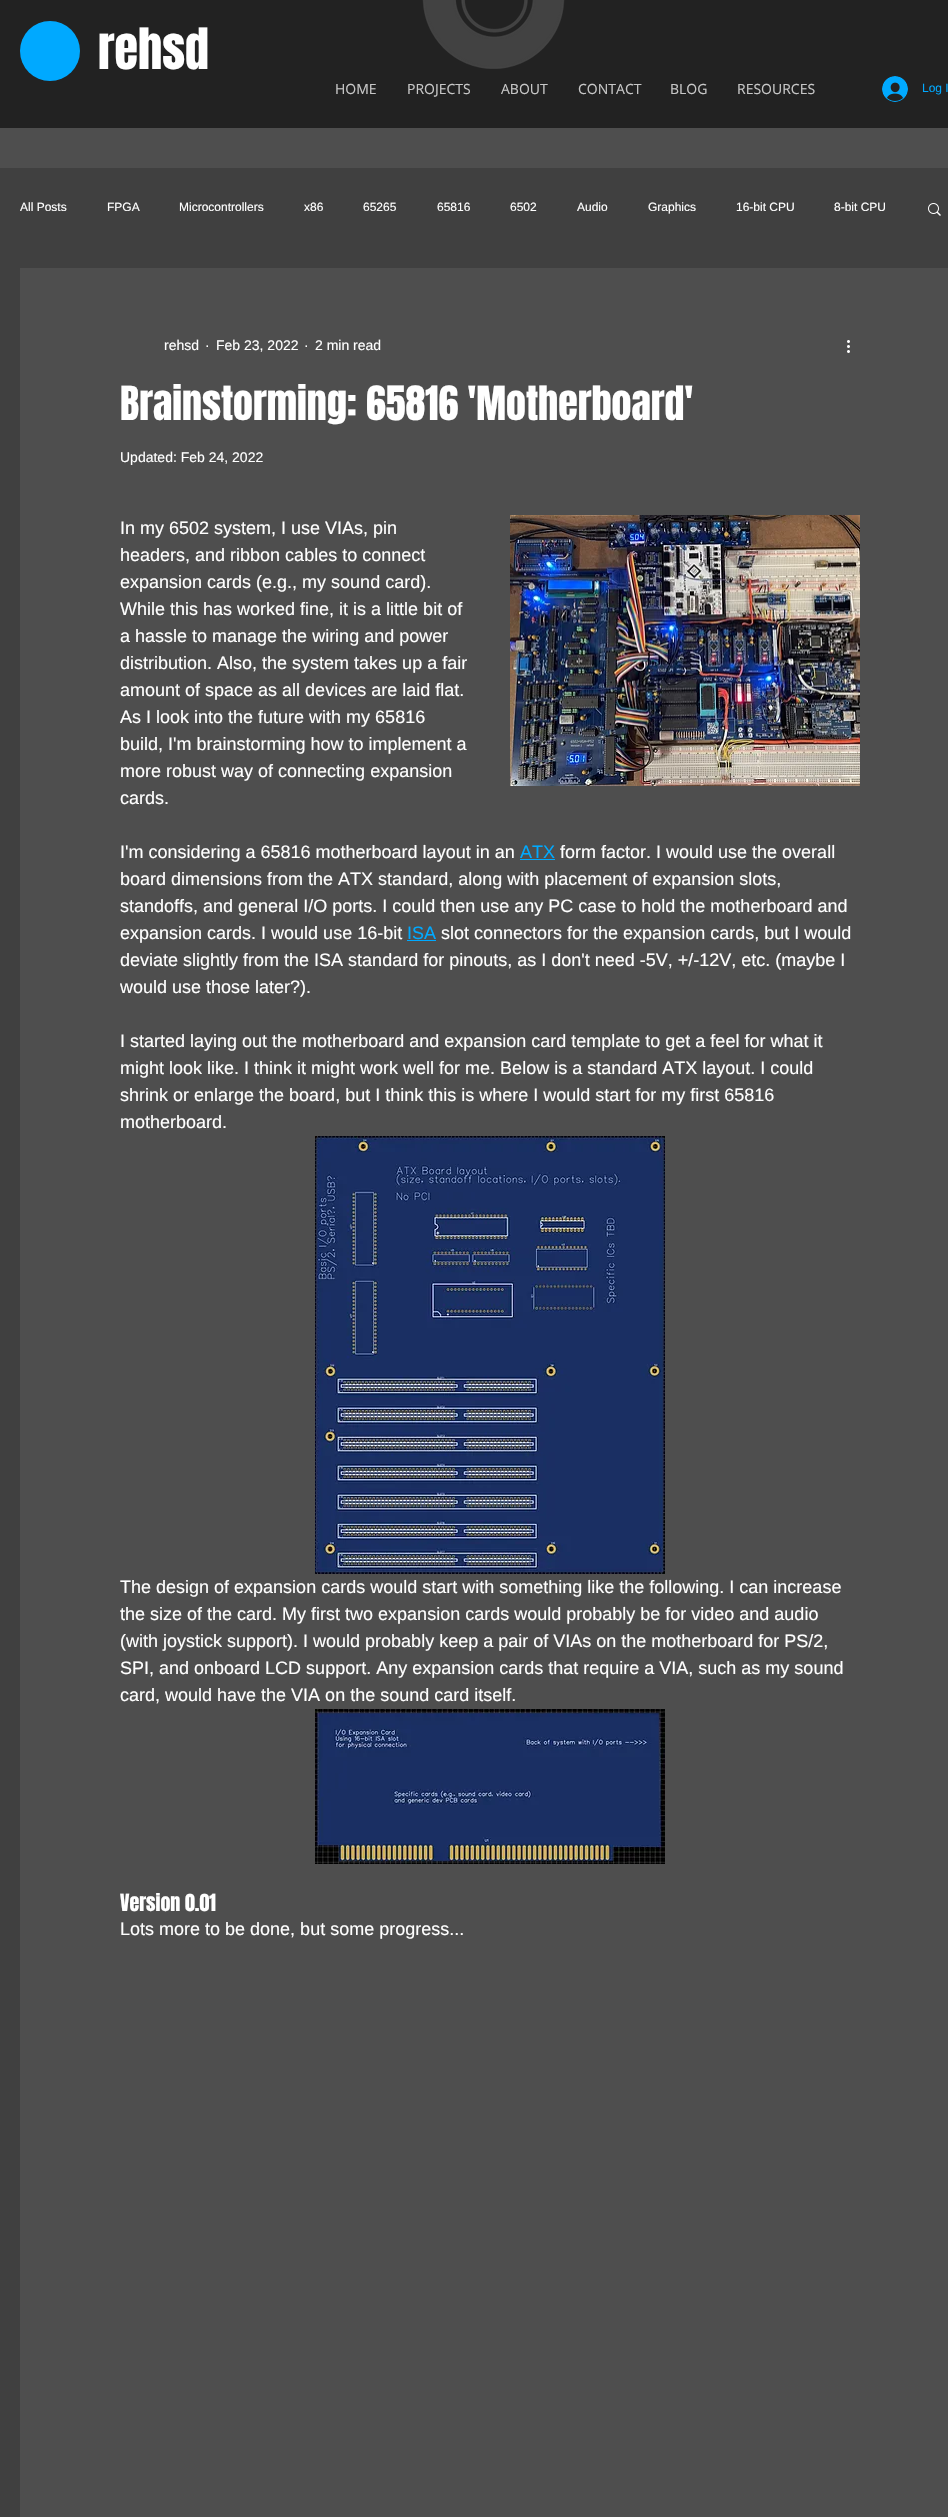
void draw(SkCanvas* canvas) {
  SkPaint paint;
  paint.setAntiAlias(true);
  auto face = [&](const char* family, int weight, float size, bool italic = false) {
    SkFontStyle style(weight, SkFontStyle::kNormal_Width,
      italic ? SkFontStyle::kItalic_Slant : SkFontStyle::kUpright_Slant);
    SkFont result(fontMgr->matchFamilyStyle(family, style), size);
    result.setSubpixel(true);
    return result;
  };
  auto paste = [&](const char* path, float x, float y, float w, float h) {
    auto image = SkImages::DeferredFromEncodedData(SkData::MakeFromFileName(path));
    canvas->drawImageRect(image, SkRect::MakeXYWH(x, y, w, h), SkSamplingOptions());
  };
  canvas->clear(0xff4e4e4e);
  paint.setColor(0xff222222);
  canvas->drawRect(SkRect::MakeXYWH(0, 0, 948, 128), paint);
  paint.setColor(0xff00a9ff);
  canvas->drawCircle(50, 51, 30, paint);
  paste("img/1.png", 422, 0, 143, 69);
  paste("img/2.png", 882, 76, 26, 26);
  paint.setColor(0xff404040);
  canvas->drawRect(SkRect::MakeXYWH(0, 168, 948, 2349), paint);
  paste("img/3.png", 928, 203, 13, 13);
  paint.setColor(0xff4e4e4e);
  canvas->drawRect(SkRect::MakeXYWH(20, 268, 928, 2249), paint);
  paste("img/4.png", 847, 340, 3, 13);
  paste("img/5.png", 510, 515, 350, 271);
  paint.setColor(0xff00a9ff);
  canvas->drawRect(SkRect::MakeXYWH(520, 859, 35, 1), paint);
  canvas->drawRect(SkRect::MakeXYWH(407, 940, 29, 1), paint);
  paste("img/6.png", 315, 1136, 350, 438);
  paste("img/7.png", 315, 1709, 350, 155);
  auto f0 = face("Anton", 400, 48);
  paint.setColor(0xffffffff);
  canvas->drawString("rehsd", 98, 69, f0, paint);
  auto f1 = face("Open Sans", 400, 14);
  paint.setColor(0xffc7c7c7);
  {
    const struct { const char* s; float x, y; } items[] = {
      {"HOME", 335, 94},
      {"PROJECTS", 407, 94},
      {"ABOUT", 501, 94},
      {"CONTACT", 578, 94},
      {"BLOG", 670, 94},
      {"RESOURCES", 737, 94},
    };
    for (auto [s, x, y] : items) {
      canvas->drawString(s, x, y, f1, paint);
    }
  }
  auto f2 = face("Liberation Sans", 400, 12);
  paint.setColor(0xff00a9ff);
  canvas->drawString("Log I", 922, 92, f2, paint);
  paint.setColor(0xffffffff);
  {
    const struct { const char* s; float x, y; } items[] = {
      {"All Posts", 20, 211},
      {"FPGA", 107, 211},
      {"Microcontrollers", 179, 211},
      {"x86", 304, 211},
      {"65265", 363, 211},
      {"65816", 437, 211},
      {"6502", 510, 211},
      {"Audio", 577, 211},
      {"Graphics", 648, 211},
      {"16-bit CPU", 736, 211},
      {"8-bit CPU", 834, 211},
    };
    for (auto [s, x, y] : items) {
      canvas->drawString(s, x, y, f2, paint);
    }
  }
  auto f3 = face("Liberation Sans", 400, 14);
  {
    const struct { const char* s; float x, y; } items[] = {
      {"rehsd", 164, 350},
      {"·", 205, 350},
      {"Feb 23, 2022", 216, 350},
      {"·", 304, 350},
      {"2 min read", 315, 350},
    };
    for (auto [s, x, y] : items) {
      canvas->drawString(s, x, y, f3, paint);
    }
  }
  auto f4 = face("Anton", 400, 40);
  canvas->drawString("Brainstorming: 65816 'Motherboard'", 120, 420, f4, paint);
  canvas->drawString("Updated: Feb 24, 2022", 120, 462, f3, paint);
  auto f5 = face("Liberation Sans", 400, 18);
  {
    const struct { const char* s; float x, y; } items[] = {
      {"In my 6502 system, I use VIAs, pin", 120, 534},
      {"headers, and ribbon cables to connect", 120, 561},
      {"expansion cards (e.g., my sound card).", 120, 588},
      {"While this has worked fine, it is a little bit of", 120, 615},
      {"a hassle to manage the wiring and power", 120, 642},
      {"distribution. Also, the system takes up a fair", 120, 669},
      {"amount of space as all devices are laid flat.", 120, 696},
      {"As I look into the future with my 65816", 120, 723},
      {"build, I'm brainstorming how to implement a", 120, 750},
      {"more robust way of connecting expansion", 120, 777},
      {"cards.", 120, 804},
      {"I'm considering a 65816 motherboard layout in an", 120, 858},
    };
    for (auto [s, x, y] : items) {
      canvas->drawString(s, x, y, f5, paint);
    }
  }
  paint.setColor(0xff00a9ff);
  canvas->drawString("ATX", 520, 858, f5, paint);
  paint.setColor(0xffffffff);
  {
    const struct { const char* s; float x, y; } items[] = {
      {"form factor. I would use the overall", 560, 858},
      {"board dimensions from the ATX standard, along with placement of expansion slots,", 120, 885},
      {"standoffs, and general I/O ports. I could then use any PC case to hold the motherboard and", 120, 912},
      {"expansion cards. I would use 16-bit", 120, 939},
    };
    for (auto [s, x, y] : items) {
      canvas->drawString(s, x, y, f5, paint);
    }
  }
  paint.setColor(0xff00a9ff);
  canvas->drawString("ISA", 407, 939, f5, paint);
  paint.setColor(0xffffffff);
  {
    const struct { const char* s; float x, y; } items[] = {
      {"slot connectors for the expansion cards, but I would", 441, 939},
      {"deviate slightly from the ISA standard for pinouts, as I don't need -5V, +/-12V, etc. (maybe I", 120, 966},
      {"would use those later?).", 120, 993},
      {"I started laying out the motherboard and expansion card template to get a feel for what it", 120, 1047},
      {"might look like. I think it might work well for me. Below is a standard ATX layout. I could", 120, 1074},
      {"shrink or enlarge the board, but I think this is where I would start for my first 65816", 120, 1101},
      {"motherboard.", 120, 1128},
      {"The design of expansion cards would start with something like the following. I can increase", 120, 1593},
      {"the size of the card. My first two expansion cards would probably be for video and audio", 120, 1620},
      {"(with joystick support). I would probably keep a pair of VIAs on the motherboard for PS/2,", 120, 1647},
      {"SPI, and onboard LCD support. Any expansion cards that require a VIA, such as my sound", 120, 1674},
      {"card, would have the VIA on the sound card itself.", 120, 1701},
    };
    for (auto [s, x, y] : items) {
      canvas->drawString(s, x, y, f5, paint);
    }
  }
  auto f6 = face("Anton", 400, 20);
  canvas->drawString("Version 0.01", 120, 1911, f6, paint);
  canvas->drawString("Lots more to be done, but some progress...", 120, 1935, f5, paint);
}
